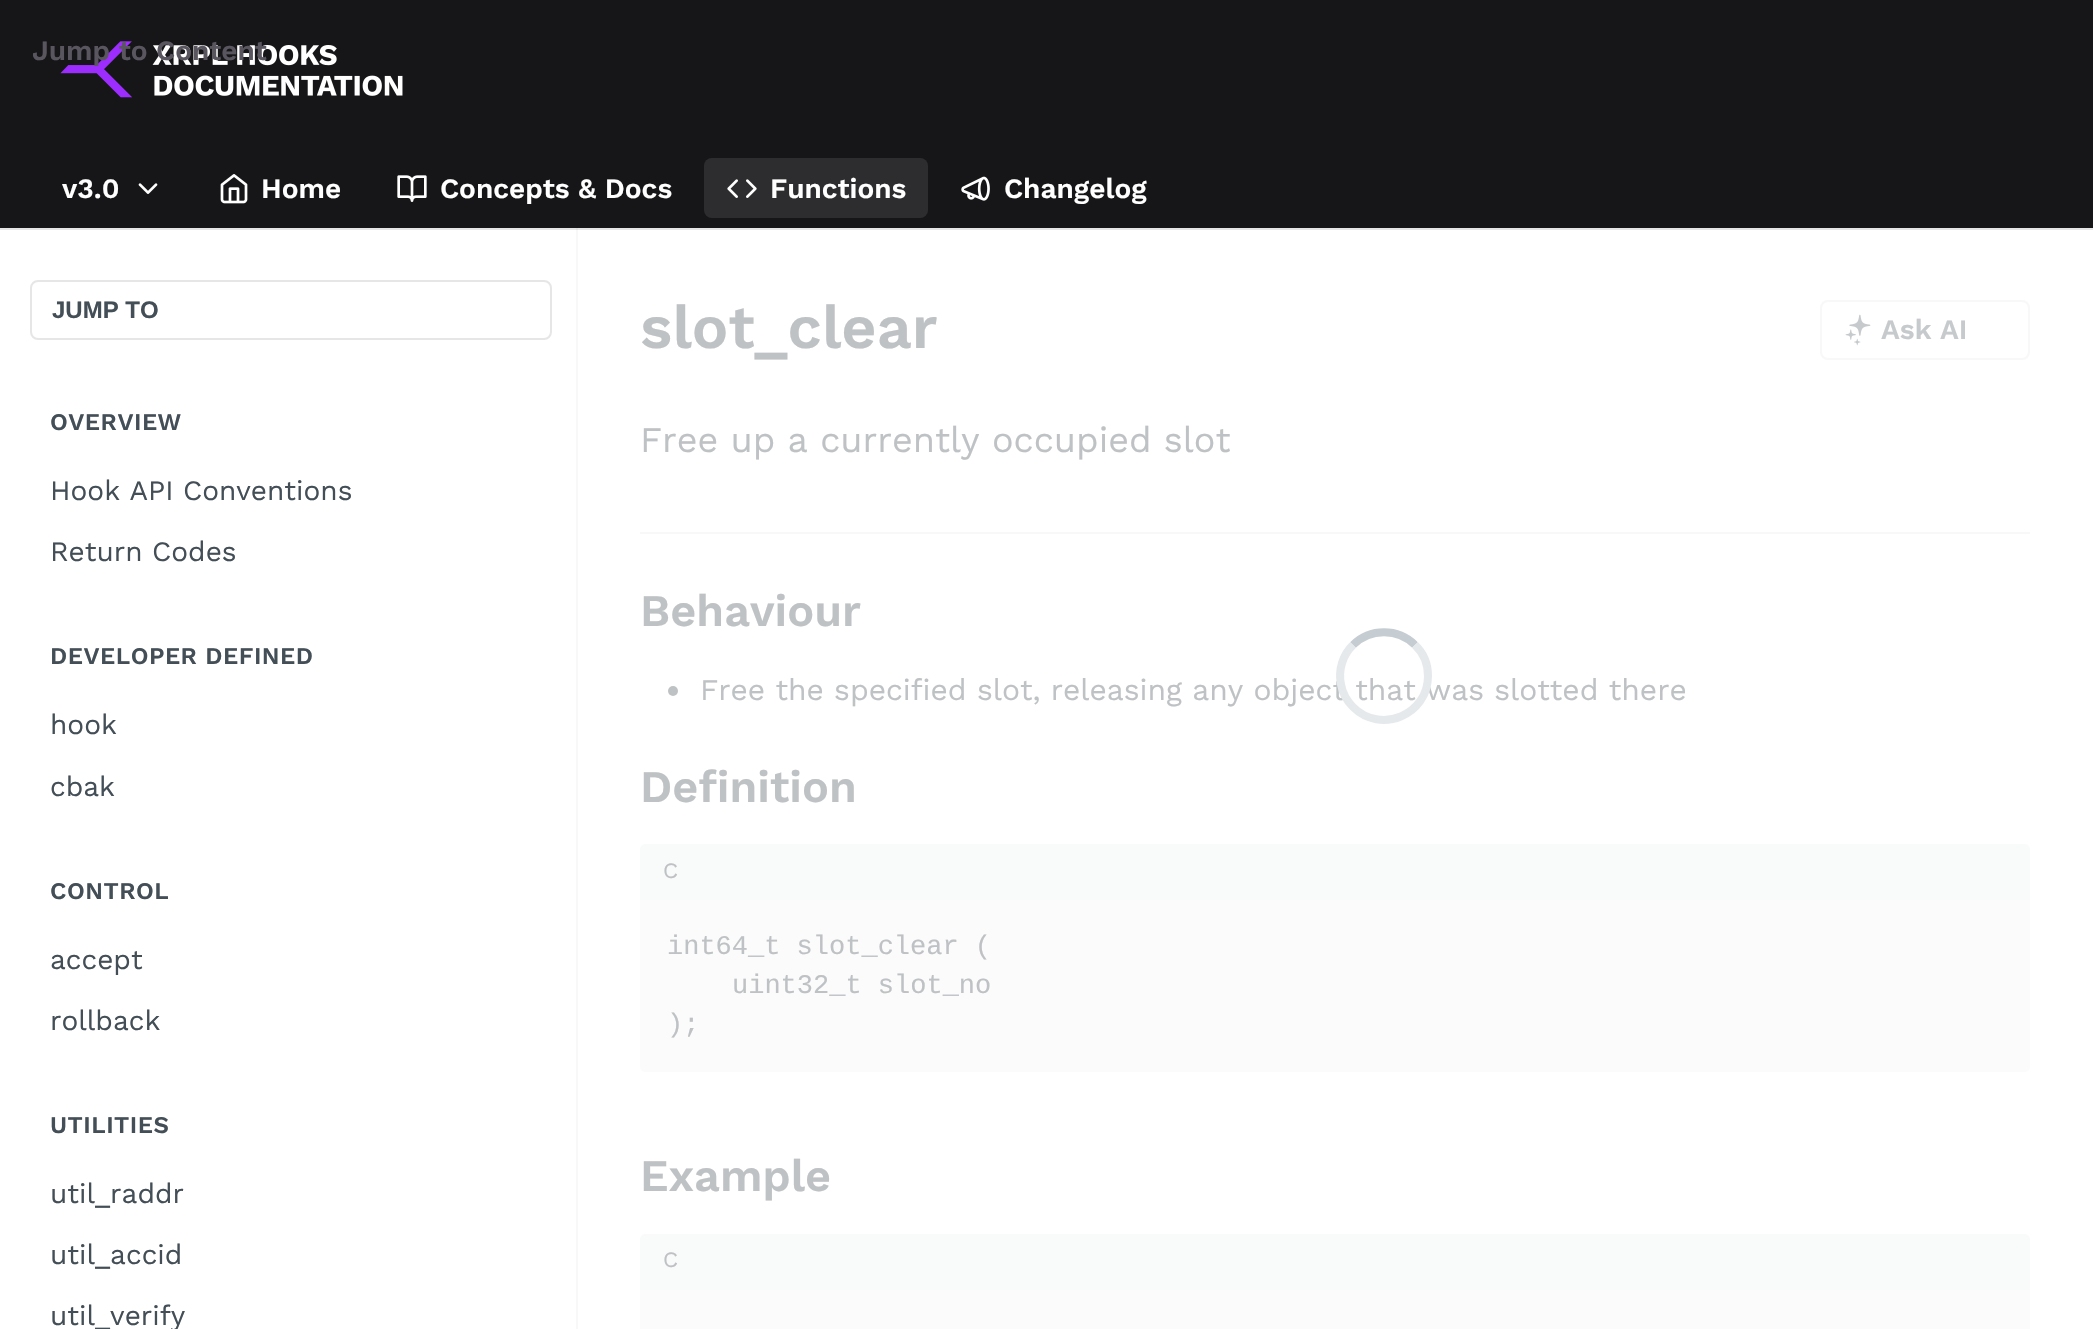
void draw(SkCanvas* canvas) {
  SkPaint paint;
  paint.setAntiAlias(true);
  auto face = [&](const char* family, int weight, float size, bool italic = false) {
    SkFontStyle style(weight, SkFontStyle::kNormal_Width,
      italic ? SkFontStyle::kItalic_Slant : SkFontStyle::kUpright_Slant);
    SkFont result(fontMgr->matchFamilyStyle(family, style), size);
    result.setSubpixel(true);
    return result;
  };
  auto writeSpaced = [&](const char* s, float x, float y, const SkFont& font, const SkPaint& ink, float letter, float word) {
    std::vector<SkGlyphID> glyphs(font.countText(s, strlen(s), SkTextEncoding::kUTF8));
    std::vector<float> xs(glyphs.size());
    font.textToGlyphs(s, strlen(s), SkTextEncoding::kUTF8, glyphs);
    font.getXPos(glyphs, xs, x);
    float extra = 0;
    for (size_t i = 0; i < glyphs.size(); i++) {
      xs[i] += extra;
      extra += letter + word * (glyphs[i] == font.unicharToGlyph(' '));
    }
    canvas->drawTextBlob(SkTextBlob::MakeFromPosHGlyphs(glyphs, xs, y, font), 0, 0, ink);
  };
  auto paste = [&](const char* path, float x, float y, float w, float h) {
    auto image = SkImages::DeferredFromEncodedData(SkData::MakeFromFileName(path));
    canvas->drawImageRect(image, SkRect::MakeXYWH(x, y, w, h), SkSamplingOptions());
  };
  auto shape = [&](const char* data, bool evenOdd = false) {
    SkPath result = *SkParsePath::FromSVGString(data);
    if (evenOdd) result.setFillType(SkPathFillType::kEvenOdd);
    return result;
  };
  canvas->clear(0xffffffff);
  paint.setColor(0xffe6e6e6);
  canvas->drawRect(SkRect::MakeXYWH(0, 228, 2093, 2), paint);
  paint.setColor(0xff161618);
  canvas->drawRect(SkRect::MakeXYWH(0, 0, 2093, 228), paint);
  paste("img/1.png", 60, 41, 343, 57);
  paste("img/2.png", 138, 183, 20, 11);
  paste("img/3.png", 220, 174, 28, 30);
  paste("img/4.png", 397, 175, 30, 27);
  paint.setColor(0xff2d2d2f);
  canvas->drawRoundRect(SkRect::MakeXYWH(704, 158, 224, 60), 8, 8, paint);
  paste("img/5.png", 727, 179, 30, 19);
  paste("img/6.png", 961, 176, 29, 25);
  paint.setColor(0xfff8f8f8);
  canvas->drawRect(SkRect::MakeXYWH(576, 228, 2, 1101), paint);
  paint.setColor(0xffdfdfdf);
  canvas->drawRect(SkRect::MakeXYWH(576, 228, 2, 2), paint);
  paint.setStroke(true);
  paint.setStrokeWidth(2);
  paint.setColor(0xffe6e6e6);
  canvas->drawRoundRect(SkRect::MakeXYWH(31, 281, 520, 58), 7, 7, paint);
  paint.setStroke(false);
  paint.setColor(0xfff8f8f8);
  canvas->drawRect(SkRect::MakeXYWH(640, 532, 1390, 2), paint);
  paint.setStroke(true);
  canvas->drawRoundRect(SkRect::MakeXYWH(1821, 301, 208, 58), 7, 7, paint);
  paste("img/7.png", 1845, 314, 26, 32);
  paint.setStroke(false);
  paint.setColor(0xffbfc2c4);
  canvas->drawCircle(673, 691, 5, paint);
  paint.setColor(0xfff9fafa);
  canvas->drawPath(shape("M646 844H2024C2027.5 844 2030 846.5 2030 850V900H640V850C640 846.5 642.5 844 646 844Z"), paint);
  paint.setColor(0xfffbfbfc);
  canvas->drawPath(shape("M640 900H2030V1066C2030 1069.5 2027.5 1072 2024 1072H646C642.5 1072 640 1069.5 640 1066Z"), paint);
  paint.setColor(0xfff9fafa);
  canvas->drawPath(shape("M646 1234H2024C2027.5 1234 2030 1236.5 2030 1240V1290H640V1240C640 1236.5 642.5 1234 646 1234Z"), paint);
  paint.setColor(0xfffbfbfc);
  canvas->drawRect(SkRect::MakeXYWH(640, 1290, 1390, 39), paint);
  paint.setStroke(true);
  paint.setStrokeWidth(8);
  paint.setColor(0xffc5cdd3);
  canvas->drawPath(shape("M1353 645C1370 628 1398 628 1415 645"), paint);
  auto f0 = face("Work Sans", 600, 28);
  paint.setStroke(false);
  paint.setColor(0xff5a565f);
  canvas->drawString("Jump to Content", 32, 60, f0, paint);
  paint.setColor(0xffffffff);
  {
    const struct { const char* s; float x, y; } items[] = {
      {"v3.0", 62, 198},
      {"Home", 261, 198},
      {"Concepts & Docs", 440, 198},
      {"Functions", 770, 198},
      {"Changelog", 1004, 198},
    };
    for (auto [s, x, y] : items) {
      canvas->drawString(s, x, y, f0, paint);
    }
  }
  auto f1 = face("Liberation Sans", 700, 24);
  paint.setColor(0xff434e56);
  canvas->drawString("JUMP TO", 52, 318, f1, paint);
  auto f2 = face("Work Sans", 600, 24);
  writeSpaced("OVERVIEW", 50, 430, f2, paint, 0.5f, 0);
  auto f3 = face("Work Sans", 400, 28);
  canvas->drawString("Hook API Conventions", 50, 500, f3, paint);
  canvas->drawString("Return Codes", 50, 561, f3, paint);
  writeSpaced("DEVELOPER DEFINED", 50, 664, f2, paint, 0.5f, 0);
  canvas->drawString("hook", 50, 734, f3, paint);
  canvas->drawString("cbak", 50, 796, f3, paint);
  writeSpaced("CONTROL", 50, 899, f2, paint, 0.5f, 0);
  canvas->drawString("accept", 50, 969, f3, paint);
  canvas->drawString("rollback", 50, 1030, f3, paint);
  writeSpaced("UTILITIES", 50, 1133, f2, paint, 0.5f, 0);
  {
    const struct { const char* s; float x, y; } items[] = {
      {"util_raddr", 50, 1203},
      {"util_accid", 50, 1264},
      {"util_verify", 50, 1325},
    };
    for (auto [s, x, y] : items) {
      canvas->drawString(s, x, y, f3, paint);
    }
  }
  auto f4 = face("Work Sans", 600, 61);
  paint.setColor(0xffbfc2c4);
  canvas->drawString("slot_clear", 640, 348, f4, paint);
  paint.setColor(0xffc7cacc);
  canvas->drawString("Ask AI", 1881, 339, f0, paint);
  auto f5 = face("Work Sans", 400, 36);
  paint.setColor(0xffbfc2c4);
  canvas->drawString("Free up a currently occupied slot", 640, 452, f5, paint);
  auto f6 = face("Work Sans", 600, 45);
  canvas->drawString("Behaviour", 640, 626, f6, paint);
  auto f7 = face("Work Sans", 400, 30);
  canvas->drawString("Free the specified slot, releasing any object that was slotted there", 700, 700, f7, paint);
  canvas->drawString("Definition", 640, 802, f6, paint);
  auto f8 = face("Work Sans", 400, 22);
  canvas->drawString("C", 663, 878, f8, paint);
  auto f9 = face("Liberation Mono", 400, 27);
  {
    const struct { const char* s; float x, y; } items[] = {
      {"int64_t slot_clear (", 667, 954},
      {"uint32_t slot_no", 732, 993},
      {");", 667, 1032},
    };
    for (auto [s, x, y] : items) {
      canvas->drawString(s, x, y, f9, paint);
    }
  }
  canvas->drawString("Example", 640, 1191, f6, paint);
  canvas->drawString("C", 663, 1267, f8, paint);
  paint.setStroke(true);
  paint.setColor(0xffe5e9eb);
  canvas->drawPath(shape("M1415 645C1423.5 653 1428 664.5 1428 676C1428 715 1380.5 734.5 1353 707C1347 701 1342.5 693 1341 684.5C1338 670.5 1342.5 655 1353 645"), paint);
}
